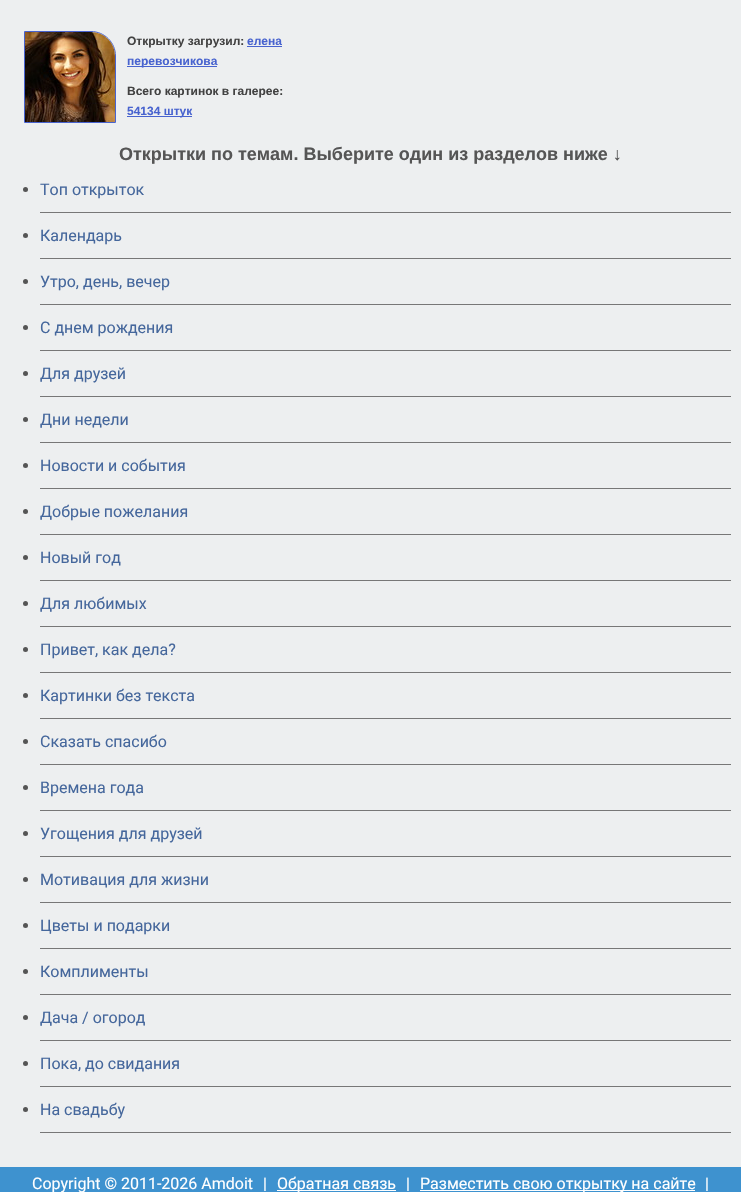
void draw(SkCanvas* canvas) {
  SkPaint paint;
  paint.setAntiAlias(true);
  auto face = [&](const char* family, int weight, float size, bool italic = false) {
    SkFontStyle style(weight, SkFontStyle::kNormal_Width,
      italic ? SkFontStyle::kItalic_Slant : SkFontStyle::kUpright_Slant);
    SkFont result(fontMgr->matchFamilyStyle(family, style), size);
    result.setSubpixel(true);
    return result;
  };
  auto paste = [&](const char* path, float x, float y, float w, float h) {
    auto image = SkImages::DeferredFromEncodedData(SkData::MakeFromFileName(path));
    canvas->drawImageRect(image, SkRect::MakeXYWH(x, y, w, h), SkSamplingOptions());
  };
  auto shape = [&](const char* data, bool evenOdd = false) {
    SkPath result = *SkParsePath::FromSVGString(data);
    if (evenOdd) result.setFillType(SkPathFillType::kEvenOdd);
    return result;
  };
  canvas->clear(0xffedeff0);
  paint.setStroke(true);
  paint.setStrokeWidth(1);
  paint.setColor(0xff4863cf);
  canvas->drawPath(shape("M24.5 31.5H91C104.5 31.5 115.5 42.5 115.5 56V122.5H24.5Z"), paint);
  paste("img/1.png", 25, 32, 90, 90);
  paint.setStroke(false);
  {
    const struct { float x, y, w, h; SkColor color; } items[] = {
      {247, 46, 35, 1, 0xff4863cf},
      {127, 66, 90, 1, 0xff4863cf},
      {127, 116, 65, 1, 0xff4863cf},
      {40, 212, 691, 1, 0xff777777},
    };
    for (auto [x, y, w, h, color] : items) {
      paint.setColor(color);
      canvas->drawRect(SkRect::MakeXYWH(x, y, w, h), paint);
    }
  }
  paint.setColor(0xff555555);
  canvas->drawCircle(25.5f, 189.5f, 2.5f, paint);
  paint.setColor(0xff777777);
  canvas->drawRect(SkRect::MakeXYWH(40, 258, 691, 1), paint);
  paint.setColor(0xff555555);
  canvas->drawCircle(25.5f, 235.5f, 2.5f, paint);
  paint.setColor(0xff777777);
  canvas->drawRect(SkRect::MakeXYWH(40, 304, 691, 1), paint);
  paint.setColor(0xff555555);
  canvas->drawCircle(25.5f, 281.5f, 2.5f, paint);
  paint.setColor(0xff777777);
  canvas->drawRect(SkRect::MakeXYWH(40, 350, 691, 1), paint);
  paint.setColor(0xff555555);
  canvas->drawCircle(25.5f, 327.5f, 2.5f, paint);
  paint.setColor(0xff777777);
  canvas->drawRect(SkRect::MakeXYWH(40, 396, 691, 1), paint);
  paint.setColor(0xff555555);
  canvas->drawCircle(25.5f, 373.5f, 2.5f, paint);
  paint.setColor(0xff777777);
  canvas->drawRect(SkRect::MakeXYWH(40, 442, 691, 1), paint);
  paint.setColor(0xff555555);
  canvas->drawCircle(25.5f, 419.5f, 2.5f, paint);
  paint.setColor(0xff777777);
  canvas->drawRect(SkRect::MakeXYWH(40, 488, 691, 1), paint);
  paint.setColor(0xff555555);
  canvas->drawCircle(25.5f, 465.5f, 2.5f, paint);
  paint.setColor(0xff777777);
  canvas->drawRect(SkRect::MakeXYWH(40, 534, 691, 1), paint);
  paint.setColor(0xff555555);
  canvas->drawCircle(25.5f, 511.5f, 2.5f, paint);
  paint.setColor(0xff777777);
  canvas->drawRect(SkRect::MakeXYWH(40, 580, 691, 1), paint);
  paint.setColor(0xff555555);
  canvas->drawCircle(25.5f, 557.5f, 2.5f, paint);
  paint.setColor(0xff777777);
  canvas->drawRect(SkRect::MakeXYWH(40, 626, 691, 1), paint);
  paint.setColor(0xff555555);
  canvas->drawCircle(25.5f, 603.5f, 2.5f, paint);
  paint.setColor(0xff777777);
  canvas->drawRect(SkRect::MakeXYWH(40, 672, 691, 1), paint);
  paint.setColor(0xff555555);
  canvas->drawCircle(25.5f, 649.5f, 2.5f, paint);
  paint.setColor(0xff777777);
  canvas->drawRect(SkRect::MakeXYWH(40, 718, 691, 1), paint);
  paint.setColor(0xff555555);
  canvas->drawCircle(25.5f, 695.5f, 2.5f, paint);
  paint.setColor(0xff777777);
  canvas->drawRect(SkRect::MakeXYWH(40, 764, 691, 1), paint);
  paint.setColor(0xff555555);
  canvas->drawCircle(25.5f, 741.5f, 2.5f, paint);
  paint.setColor(0xff777777);
  canvas->drawRect(SkRect::MakeXYWH(40, 810, 691, 1), paint);
  paint.setColor(0xff555555);
  canvas->drawCircle(25.5f, 787.5f, 2.5f, paint);
  paint.setColor(0xff777777);
  canvas->drawRect(SkRect::MakeXYWH(40, 856, 691, 1), paint);
  paint.setColor(0xff555555);
  canvas->drawCircle(25.5f, 833.5f, 2.5f, paint);
  paint.setColor(0xff777777);
  canvas->drawRect(SkRect::MakeXYWH(40, 902, 691, 1), paint);
  paint.setColor(0xff555555);
  canvas->drawCircle(25.5f, 879.5f, 2.5f, paint);
  paint.setColor(0xff777777);
  canvas->drawRect(SkRect::MakeXYWH(40, 948, 691, 1), paint);
  paint.setColor(0xff555555);
  canvas->drawCircle(25.5f, 925.5f, 2.5f, paint);
  paint.setColor(0xff777777);
  canvas->drawRect(SkRect::MakeXYWH(40, 994, 691, 1), paint);
  paint.setColor(0xff555555);
  canvas->drawCircle(25.5f, 971.5f, 2.5f, paint);
  paint.setColor(0xff777777);
  canvas->drawRect(SkRect::MakeXYWH(40, 1040, 691, 1), paint);
  paint.setColor(0xff555555);
  canvas->drawCircle(25.5f, 1017.5f, 2.5f, paint);
  paint.setColor(0xff777777);
  canvas->drawRect(SkRect::MakeXYWH(40, 1086, 691, 1), paint);
  paint.setColor(0xff555555);
  canvas->drawCircle(25.5f, 1063.5f, 2.5f, paint);
  paint.setColor(0xff777777);
  canvas->drawRect(SkRect::MakeXYWH(40, 1132, 691, 1), paint);
  paint.setColor(0xff555555);
  canvas->drawCircle(25.5f, 1109.5f, 2.5f, paint);
  {
    const struct { float x, y, w, h; SkColor color; } items[] = {
      {0, 1167, 741, 25, 0xff3e92cf},
      {277, 1190, 119, 1, 0xffffffff},
      {420, 1190, 275, 1, 0xffffffff},
    };
    for (auto [x, y, w, h, color] : items) {
      paint.setColor(color);
      canvas->drawRect(SkRect::MakeXYWH(x, y, w, h), paint);
    }
  }
  auto f0 = face("Liberation Sans", 700, 12);
  paint.setColor(0xff424242);
  canvas->drawString("Открытку загрузил:", 127, 45, f0, paint);
  paint.setColor(0xff4863cf);
  canvas->drawString("елена", 247, 45, f0, paint);
  canvas->drawString("перевозчикова", 127, 65, f0, paint);
  paint.setColor(0xff424242);
  canvas->drawString("Всего картинок в галерее:", 127, 95, f0, paint);
  paint.setColor(0xff4863cf);
  canvas->drawString("54134 штук", 127, 115, f0, paint);
  auto f1 = face("Liberation Sans", 700, 18);
  paint.setColor(0xff555555);
  canvas->drawString("Открытки по темам. Выберите один из разделов ниже ↓", 119, 160, f1, paint);
  auto f2 = face("Roboto", 400, 16);
  paint.setColor(0xff45679c);
  {
    const struct { const char* s; float x, y; } items[] = {
      {"Топ открыток", 40, 195},
      {"Календарь", 40, 241},
      {"Утро, день, вечер", 40, 287},
      {"C днем рождения", 40, 333},
      {"Для друзей", 40, 379},
      {"Дни недели", 40, 425},
      {"Новости и события", 40, 471},
      {"Добрые пожелания", 40, 517},
      {"Новый год", 40, 563},
      {"Для любимых", 40, 609},
      {"Привет, как дела?", 40, 655},
      {"Картинки без текста", 40, 701},
      {"Сказать спасибо", 40, 747},
      {"Времена года", 40, 793},
      {"Угощения для друзей", 40, 839},
      {"Мотивация для жизни", 40, 885},
      {"Цветы и подарки", 40, 931},
      {"Комплименты", 40, 977},
      {"Дача / огород", 40, 1023},
      {"Пока, до свидания", 40, 1069},
      {"На свадьбу", 40, 1115},
    };
    for (auto [s, x, y] : items) {
      canvas->drawString(s, x, y, f2, paint);
    }
  }
  paint.setColor(0xffffffff);
  {
    const struct { const char* s; float x, y; } items[] = {
      {"Copyright © 2011-2026 Amdoit", 32, 1189},
      {"|", 263, 1189},
      {"Обратная связь", 277, 1189},
      {"|", 406, 1189},
      {"Разместить свою открытку на сайте", 420, 1189},
      {"|", 705, 1189},
    };
    for (auto [s, x, y] : items) {
      canvas->drawString(s, x, y, f2, paint);
    }
  }
}
